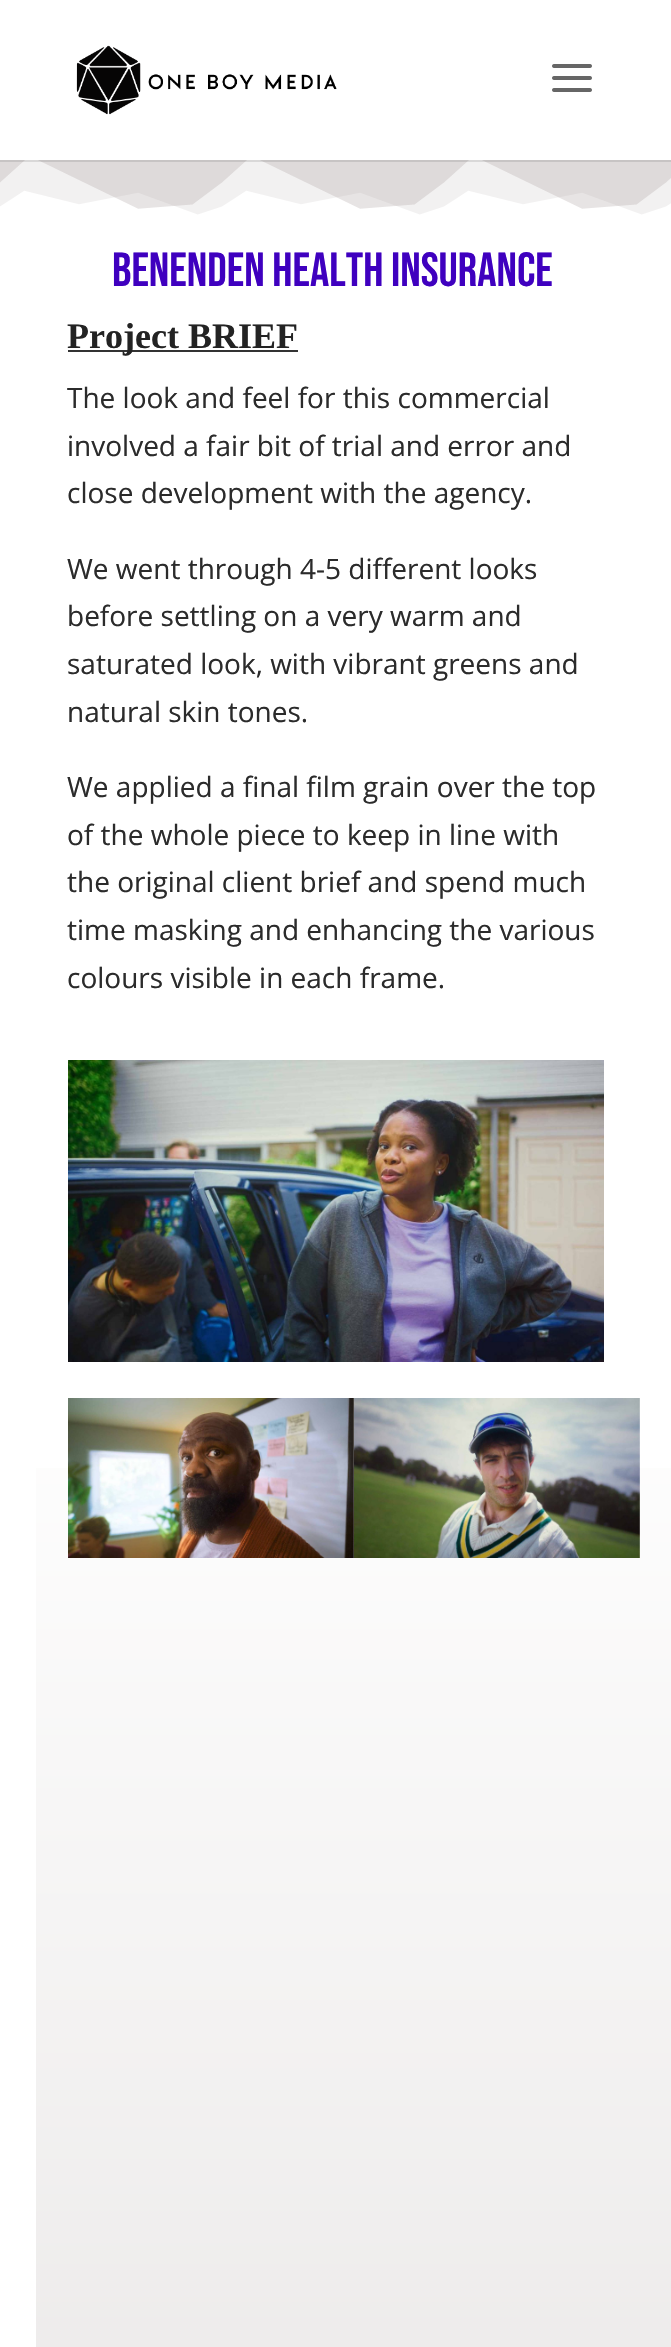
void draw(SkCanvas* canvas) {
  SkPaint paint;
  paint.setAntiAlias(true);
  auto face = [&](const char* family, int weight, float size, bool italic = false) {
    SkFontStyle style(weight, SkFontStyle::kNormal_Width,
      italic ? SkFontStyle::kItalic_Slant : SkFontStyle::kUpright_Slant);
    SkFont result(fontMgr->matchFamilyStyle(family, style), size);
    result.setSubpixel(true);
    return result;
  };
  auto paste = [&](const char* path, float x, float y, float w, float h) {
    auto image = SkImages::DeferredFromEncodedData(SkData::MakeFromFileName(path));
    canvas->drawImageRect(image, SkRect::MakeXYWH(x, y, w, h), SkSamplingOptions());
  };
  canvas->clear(0xffffffff);
  paste("img/3.png", 0, 160, 671, 55);
  paint.setColor(0x1a000000);
  canvas->drawRect(SkRect::MakeXYWH(0, 160, 671, 2), paint);
  paste("img/1.png", 76, 45, 261, 70);
  paste("img/2.png", 552, 64, 40, 28);
  paint.setColor(0xff333333);
  canvas->drawRect(SkRect::MakeXYWH(68, 350, 230, 2), paint);
  paste("img/4.png", 68, 1060, 536, 302);
  {
    const SkColor colors[] = {0xffffffff, 0xffa89f9d};
    const float stops[] = {0, 0.77f};
    const SkPoint ends[] = {{354, 1338}, {354, 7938}};
    paint.setShader(SkGradientShader::MakeLinear(ends, colors, stops, 2, SkTileMode::kClamp));
    paint.setAlpha(255);
  }
  canvas->drawRect(SkRect::MakeXYWH(36, 1468, 635, 879), paint);
  paste("img/5.png", 68, 1398, 286, 160);
  paste("img/6.png", 354, 1398, 286, 160);
  auto f0 = face("Bebas Neue", 400, 48);
  paint.setShader(nullptr);
  paint.setColor(0xff3f00bf);
  canvas->drawString("Benenden Health Insurance", 112, 286, f0, paint);
  auto f1 = face("Liberation Serif", 700, 36);
  paint.setColor(0xff232323);
  canvas->drawString("Project BRIEF", 67, 348, f1, paint);
  auto f2 = face("Open Sans", 400, 28);
  paint.setColor(0xff2b2b2b);
  {
    const struct { const char* s; float x, y; } items[] = {
      {"The look and feel for this commercial", 67, 408},
      {"involved a fair bit of trial and error and", 67, 456},
      {"close development with the agency.", 67, 503},
      {"We went through 4-5 different looks", 67, 579},
      {"before settling on a very warm and", 67, 626},
      {"saturated look, with vibrant greens and", 67, 674},
      {"natural skin tones.", 67, 722},
      {"We applied a final film grain over the top", 67, 797},
      {"of the whole piece to keep in line with", 67, 845},
      {"the original client brief and spend much", 67, 892},
      {"time masking and enhancing the various", 67, 940},
      {"colours visible in each frame.", 67, 988},
    };
    for (auto [s, x, y] : items) {
      canvas->drawString(s, x, y, f2, paint);
    }
  }
}
